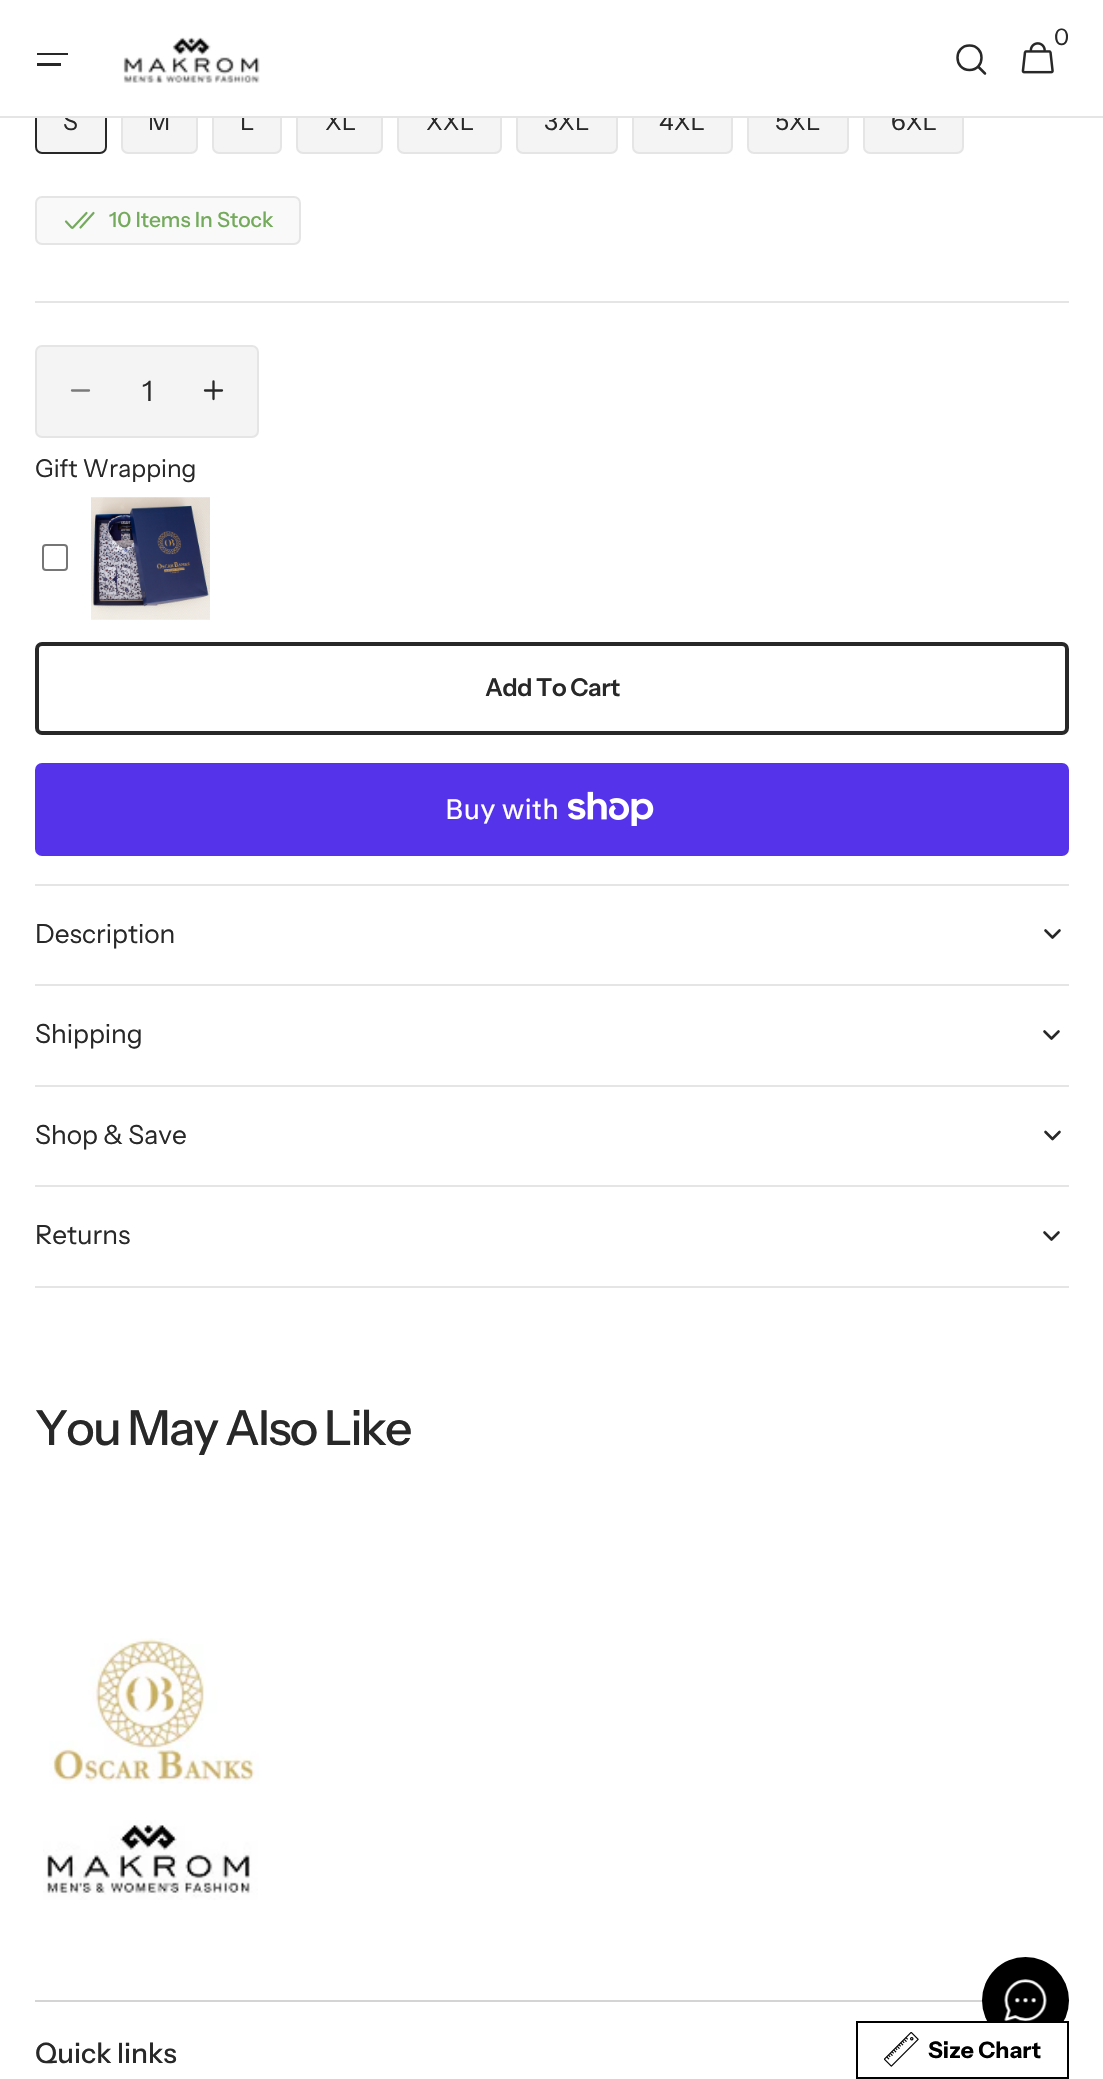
void draw(SkCanvas* canvas) {
  SkPaint paint;
  paint.setAntiAlias(true);
  auto face = [&](const char* family, int weight, float size, bool italic = false) {
    SkFontStyle style(weight, SkFontStyle::kNormal_Width,
      italic ? SkFontStyle::kItalic_Slant : SkFontStyle::kUpright_Slant);
    SkFont result(fontMgr->matchFamilyStyle(family, style), size);
    result.setSubpixel(true);
    return result;
  };
  auto writeSpaced = [&](const char* s, float x, float y, const SkFont& font, const SkPaint& ink, float letter, float word) {
    std::vector<SkGlyphID> glyphs(font.countText(s, strlen(s), SkTextEncoding::kUTF8));
    std::vector<float> xs(glyphs.size());
    font.textToGlyphs(s, strlen(s), SkTextEncoding::kUTF8, glyphs);
    font.getXPos(glyphs, xs, x);
    float extra = 0;
    for (size_t i = 0; i < glyphs.size(); i++) {
      xs[i] += extra;
      extra += letter + word * (glyphs[i] == font.unicharToGlyph(' '));
    }
    canvas->drawTextBlob(SkTextBlob::MakeFromPosHGlyphs(glyphs, xs, y, font), 0, 0, ink);
  };
  auto paste = [&](const char* path, float x, float y, float w, float h) {
    auto image = SkImages::DeferredFromEncodedData(SkData::MakeFromFileName(path));
    canvas->drawImageRect(image, SkRect::MakeXYWH(x, y, w, h), SkSamplingOptions());
  };
  auto shape = [&](const char* data, bool evenOdd = false) {
    SkPath result = *SkParsePath::FromSVGString(data);
    if (evenOdd) result.setFillType(SkPathFillType::kEvenOdd);
    return result;
  };
  canvas->clear(0xffffffff);
  paint.setColor(0xff282828);
  canvas->drawRect(SkRect::MakeXYWH(37, 53, 31, 2), paint);
  canvas->drawRect(SkRect::MakeXYWH(37, 63, 24, 3), paint);
  paste("img/1.png", 123, 37, 137, 46);
  paste("img/2.png", 1021, 42, 33, 32);
  paint.setStroke(true);
  paint.setStrokeWidth(2.5f);
  paint.setStrokeCap(SkPaint::kRound_Cap);
  paint.setStrokeJoin(SkPaint::kRound_Join);
  canvas->drawPath(shape("M969.5 70C985.5 70 985.5 45.5 969.5 45.5C953.5 45.5 953.5 70 969.5 70ZM978 66.5L985 73.5"), paint);
  paint.setStroke(false);
  paint.setColor(0xfff4f4f4);
  canvas->drawRoundRect(SkRect::MakeXYWH(36, 92, 70, 61), 6, 6, paint);
  paint.setStroke(true);
  paint.setStrokeWidth(2);
  paint.setStrokeCap(SkPaint::kButt_Cap);
  paint.setStrokeJoin(SkPaint::kMiter_Join);
  paint.setColor(0xff282828);
  canvas->drawRoundRect(SkRect::MakeXYWH(36, 92, 70, 61), 6, 6, paint);
  paint.setStroke(false);
  paint.setColor(0xfff4f4f4);
  canvas->drawRoundRect(SkRect::MakeXYWH(122, 92, 75, 61), 6, 6, paint);
  paint.setStroke(true);
  paint.setColor(0xffe5e5e5);
  canvas->drawRoundRect(SkRect::MakeXYWH(122, 92, 75, 61), 6, 6, paint);
  paint.setStroke(false);
  paint.setColor(0xfff4f4f4);
  canvas->drawRoundRect(SkRect::MakeXYWH(213, 92, 68, 61), 6, 6, paint);
  paint.setStroke(true);
  paint.setColor(0xffe5e5e5);
  canvas->drawRoundRect(SkRect::MakeXYWH(213, 92, 68, 61), 6, 6, paint);
  paint.setStroke(false);
  paint.setColor(0xfff4f4f4);
  canvas->drawRoundRect(SkRect::MakeXYWH(297, 92, 85, 61), 6, 6, paint);
  paint.setStroke(true);
  paint.setColor(0xffe5e5e5);
  canvas->drawRoundRect(SkRect::MakeXYWH(297, 92, 85, 61), 6, 6, paint);
  paint.setStroke(false);
  paint.setColor(0xfff4f4f4);
  canvas->drawRoundRect(SkRect::MakeXYWH(398, 92, 103, 61), 6, 6, paint);
  paint.setStroke(true);
  paint.setColor(0xffe5e5e5);
  canvas->drawRoundRect(SkRect::MakeXYWH(398, 92, 103, 61), 6, 6, paint);
  paint.setStroke(false);
  paint.setColor(0xfff4f4f4);
  canvas->drawRoundRect(SkRect::MakeXYWH(517, 92, 100, 61), 6, 6, paint);
  paint.setStroke(true);
  paint.setColor(0xffe5e5e5);
  canvas->drawRoundRect(SkRect::MakeXYWH(517, 92, 100, 61), 6, 6, paint);
  paint.setStroke(false);
  paint.setColor(0xfff4f4f4);
  canvas->drawRoundRect(SkRect::MakeXYWH(633, 92, 99, 61), 6, 6, paint);
  paint.setStroke(true);
  paint.setColor(0xffe5e5e5);
  canvas->drawRoundRect(SkRect::MakeXYWH(633, 92, 99, 61), 6, 6, paint);
  paint.setStroke(false);
  paint.setColor(0xfff4f4f4);
  canvas->drawRoundRect(SkRect::MakeXYWH(748, 92, 100, 61), 6, 6, paint);
  paint.setStroke(true);
  paint.setColor(0xffe5e5e5);
  canvas->drawRoundRect(SkRect::MakeXYWH(748, 92, 100, 61), 6, 6, paint);
  paint.setStroke(false);
  paint.setColor(0xfff4f4f4);
  canvas->drawRoundRect(SkRect::MakeXYWH(864, 92, 99, 61), 6, 6, paint);
  paint.setStroke(true);
  paint.setColor(0xffe5e5e5);
  canvas->drawRoundRect(SkRect::MakeXYWH(864, 92, 99, 61), 6, 6, paint);
  paint.setStroke(false);
  paint.setColor(0xfff9f9f9);
  canvas->drawRoundRect(SkRect::MakeXYWH(36, 197, 264, 47), 6, 6, paint);
  paint.setStroke(true);
  paint.setColor(0xffe5e5e5);
  canvas->drawRoundRect(SkRect::MakeXYWH(36, 197, 264, 47), 6, 6, paint);
  paint.setStrokeWidth(2.2f);
  paint.setStrokeCap(SkPaint::kRound_Cap);
  paint.setColor(0xff74aa5b);
  canvas->drawPath(shape("M86.5 213L73 227.5C72.5 228 72 228 71.5 227.5L66 221.5M80.5 227.5L93.5 213"), paint);
  paint.setStroke(false);
  paint.setColor(0xffe5e5e5);
  canvas->drawRect(SkRect::MakeXYWH(35, 301, 1034, 2), paint);
  paint.setColor(0xfff4f4f4);
  canvas->drawRoundRect(SkRect::MakeXYWH(36, 346, 222, 91), 6, 6, paint);
  paint.setStroke(true);
  paint.setStrokeWidth(2);
  paint.setStrokeCap(SkPaint::kButt_Cap);
  paint.setColor(0xffe5e5e5);
  canvas->drawRoundRect(SkRect::MakeXYWH(36, 346, 222, 91), 6, 6, paint);
  paint.setStrokeWidth(2.3f);
  paint.setStrokeCap(SkPaint::kRound_Cap);
  paint.setColor(0xff7a7a7a);
  canvas->drawPath(shape("M89 390.5H72"), paint);
  paint.setColor(0xff282828);
  canvas->drawPath(shape("M222 390.5H205M213.5 399V381.5"), paint);
  paint.setStrokeWidth(2);
  paint.setStrokeCap(SkPaint::kButt_Cap);
  paint.setColor(0xff767676);
  canvas->drawRoundRect(SkRect::MakeXYWH(43, 545, 24, 25), 3, 3, paint);
  paste("img/3.png", 91, 497, 119, 123);
  paint.setStrokeWidth(4);
  paint.setColor(0xff282828);
  canvas->drawRoundRect(SkRect::MakeXYWH(37, 644, 1030, 89), 5, 5, paint);
  paint.setStroke(false);
  paint.setColor(0xff5433eb);
  canvas->drawRoundRect(SkRect::MakeXYWH(35, 763, 1034, 93), 7, 7, paint);
  paste("img/4.png", 568, 791, 86, 35);
  paint.setColor(0xffe5e5e5);
  canvas->drawRect(SkRect::MakeXYWH(35, 884, 1034, 2), paint);
  paint.setStroke(true);
  paint.setStrokeWidth(2.6f);
  paint.setStrokeCap(SkPaint::kRound_Cap);
  paint.setStrokeJoin(SkPaint::kRound_Join);
  paint.setColor(0xff282828);
  canvas->drawPath(shape("M1059.5 930.5L1052.5 937.5L1045.5 930.5"), paint);
  paint.setStroke(false);
  paint.setColor(0xffe5e5e5);
  canvas->drawRect(SkRect::MakeXYWH(35, 984, 1034, 2), paint);
  canvas->drawRect(SkRect::MakeXYWH(35, 1085, 1034, 2), paint);
  paint.setStroke(true);
  paint.setColor(0xff282828);
  canvas->drawPath(shape("M1058.5 1031.5L1051.5 1038.5L1044.5 1031.5"), paint);
  paint.setStroke(false);
  paint.setColor(0xffe5e5e5);
  canvas->drawRect(SkRect::MakeXYWH(35, 1185, 1034, 2), paint);
  paint.setStroke(true);
  paint.setColor(0xff282828);
  canvas->drawPath(shape("M1059.5 1132L1052.5 1139L1045.5 1132"), paint);
  paint.setStroke(false);
  paint.setColor(0xffe5e5e5);
  canvas->drawRect(SkRect::MakeXYWH(35, 1286, 1034, 2), paint);
  paint.setStroke(true);
  paint.setColor(0xff282828);
  canvas->drawPath(shape("M1058.5 1232.5L1051.5 1239.5L1044.5 1232.5"), paint);
  paint.setStroke(false);
  paint.setColor(0xffd4d4d4);
  canvas->drawRect(SkRect::MakeXYWH(35, 2000, 1034, 2), paint);
  paint.setColor(0xff000000);
  canvas->drawCircle(1025.5f, 2000.5f, 43.5f, paint);
  paste("img/5.png", 1004, 1979, 43, 42);
  paste("img/6.png", 49, 1638, 210, 146);
  paste("img/7.png", 43, 1820, 215, 80);
  paint.setColor(0xffffffff);
  canvas->drawRect(SkRect::MakeXYWH(988, 2023, 75, 21), paint);
  paint.setStroke(true);
  paint.setStrokeWidth(2);
  paint.setStrokeCap(SkPaint::kButt_Cap);
  paint.setStrokeJoin(SkPaint::kMiter_Join);
  paint.setColor(0xff000000);
  canvas->drawRect(SkRect::MakeXYWH(857, 2022, 211, 56), paint);
  paste("img/8.png", 884, 2032, 35, 35);
  auto f0 = face("Instrument Sans", 400, 22.75f);
  paint.setStroke(false);
  paint.setColor(0xff282828);
  canvas->drawString("0", 1054, 45, f0, paint);
  auto f1 = face("Instrument Sans", 400, 24.5f);
  {
    const struct { const char* s; float x, y; } items[] = {
      {"S", 63, 130},
      {"M", 148, 130},
      {"L", 240, 130},
      {"XL", 325, 130},
      {"XXL", 426, 130},
      {"3XL", 544, 130},
      {"4XL", 659, 130},
      {"5XL", 775, 130},
      {"6XL", 891, 130},
    };
    for (auto [s, x, y] : items) {
      canvas->drawString(s, x, y, f1, paint);
    }
  }
  paint.setColor(0xffe5e5e5);
  canvas->drawRect(SkRect::MakeXYWH(0, 116, 1103, 2), paint);
  paint.setColor(0xffffffff);
  canvas->drawRect(SkRect::MakeXYWH(35, 91, 929, 25), paint);
  auto f2 = face("Instrument Sans", 500, 21);
  paint.setColor(0xff74aa5b);
  canvas->drawString("10 Items In Stock", 109, 227, f2, paint);
  auto f3 = face("Instrument Sans", 400, 28);
  paint.setColor(0xff282828);
  canvas->drawString("1", 142, 401, f3, paint);
  canvas->drawString("Gift Wrapping", 35, 477, f1, paint);
  auto f4 = face("Instrument Sans", 600, 24.5f);
  writeSpaced("Add To Cart", 485, 696, f4, paint, -0.5f, 0);
  auto f5 = face("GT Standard", 400, 28);
  paint.setColor(0xffffffff);
  canvas->drawString("Buy with", 445, 819, f5, paint);
  auto f6 = face("Instrument Sans", 400, 26.25f);
  paint.setColor(0xff282828);
  {
    const struct { const char* s; float x, y; } items[] = {
      {"Description", 35, 943},
      {"Shipping", 35, 1043},
      {"Shop & Save", 35, 1144},
      {"Returns", 35, 1244},
    };
    for (auto [s, x, y] : items) {
      canvas->drawString(s, x, y, f6, paint);
    }
  }
  auto f7 = face("Instrument Sans", 500, 48.25f);
  writeSpaced("You May Also Like", 35, 1445, f7, paint, -1.9f, 0);
  auto f8 = face("Instrument Sans", 500, 28);
  canvas->drawString("Quick links", 35, 2063, f8, paint);
  auto f9 = face("Instrument Sans", 700, 22.75f);
  paint.setColor(0xff000000);
  canvas->drawString("Size Chart", 928, 2058, f9, paint);
}
